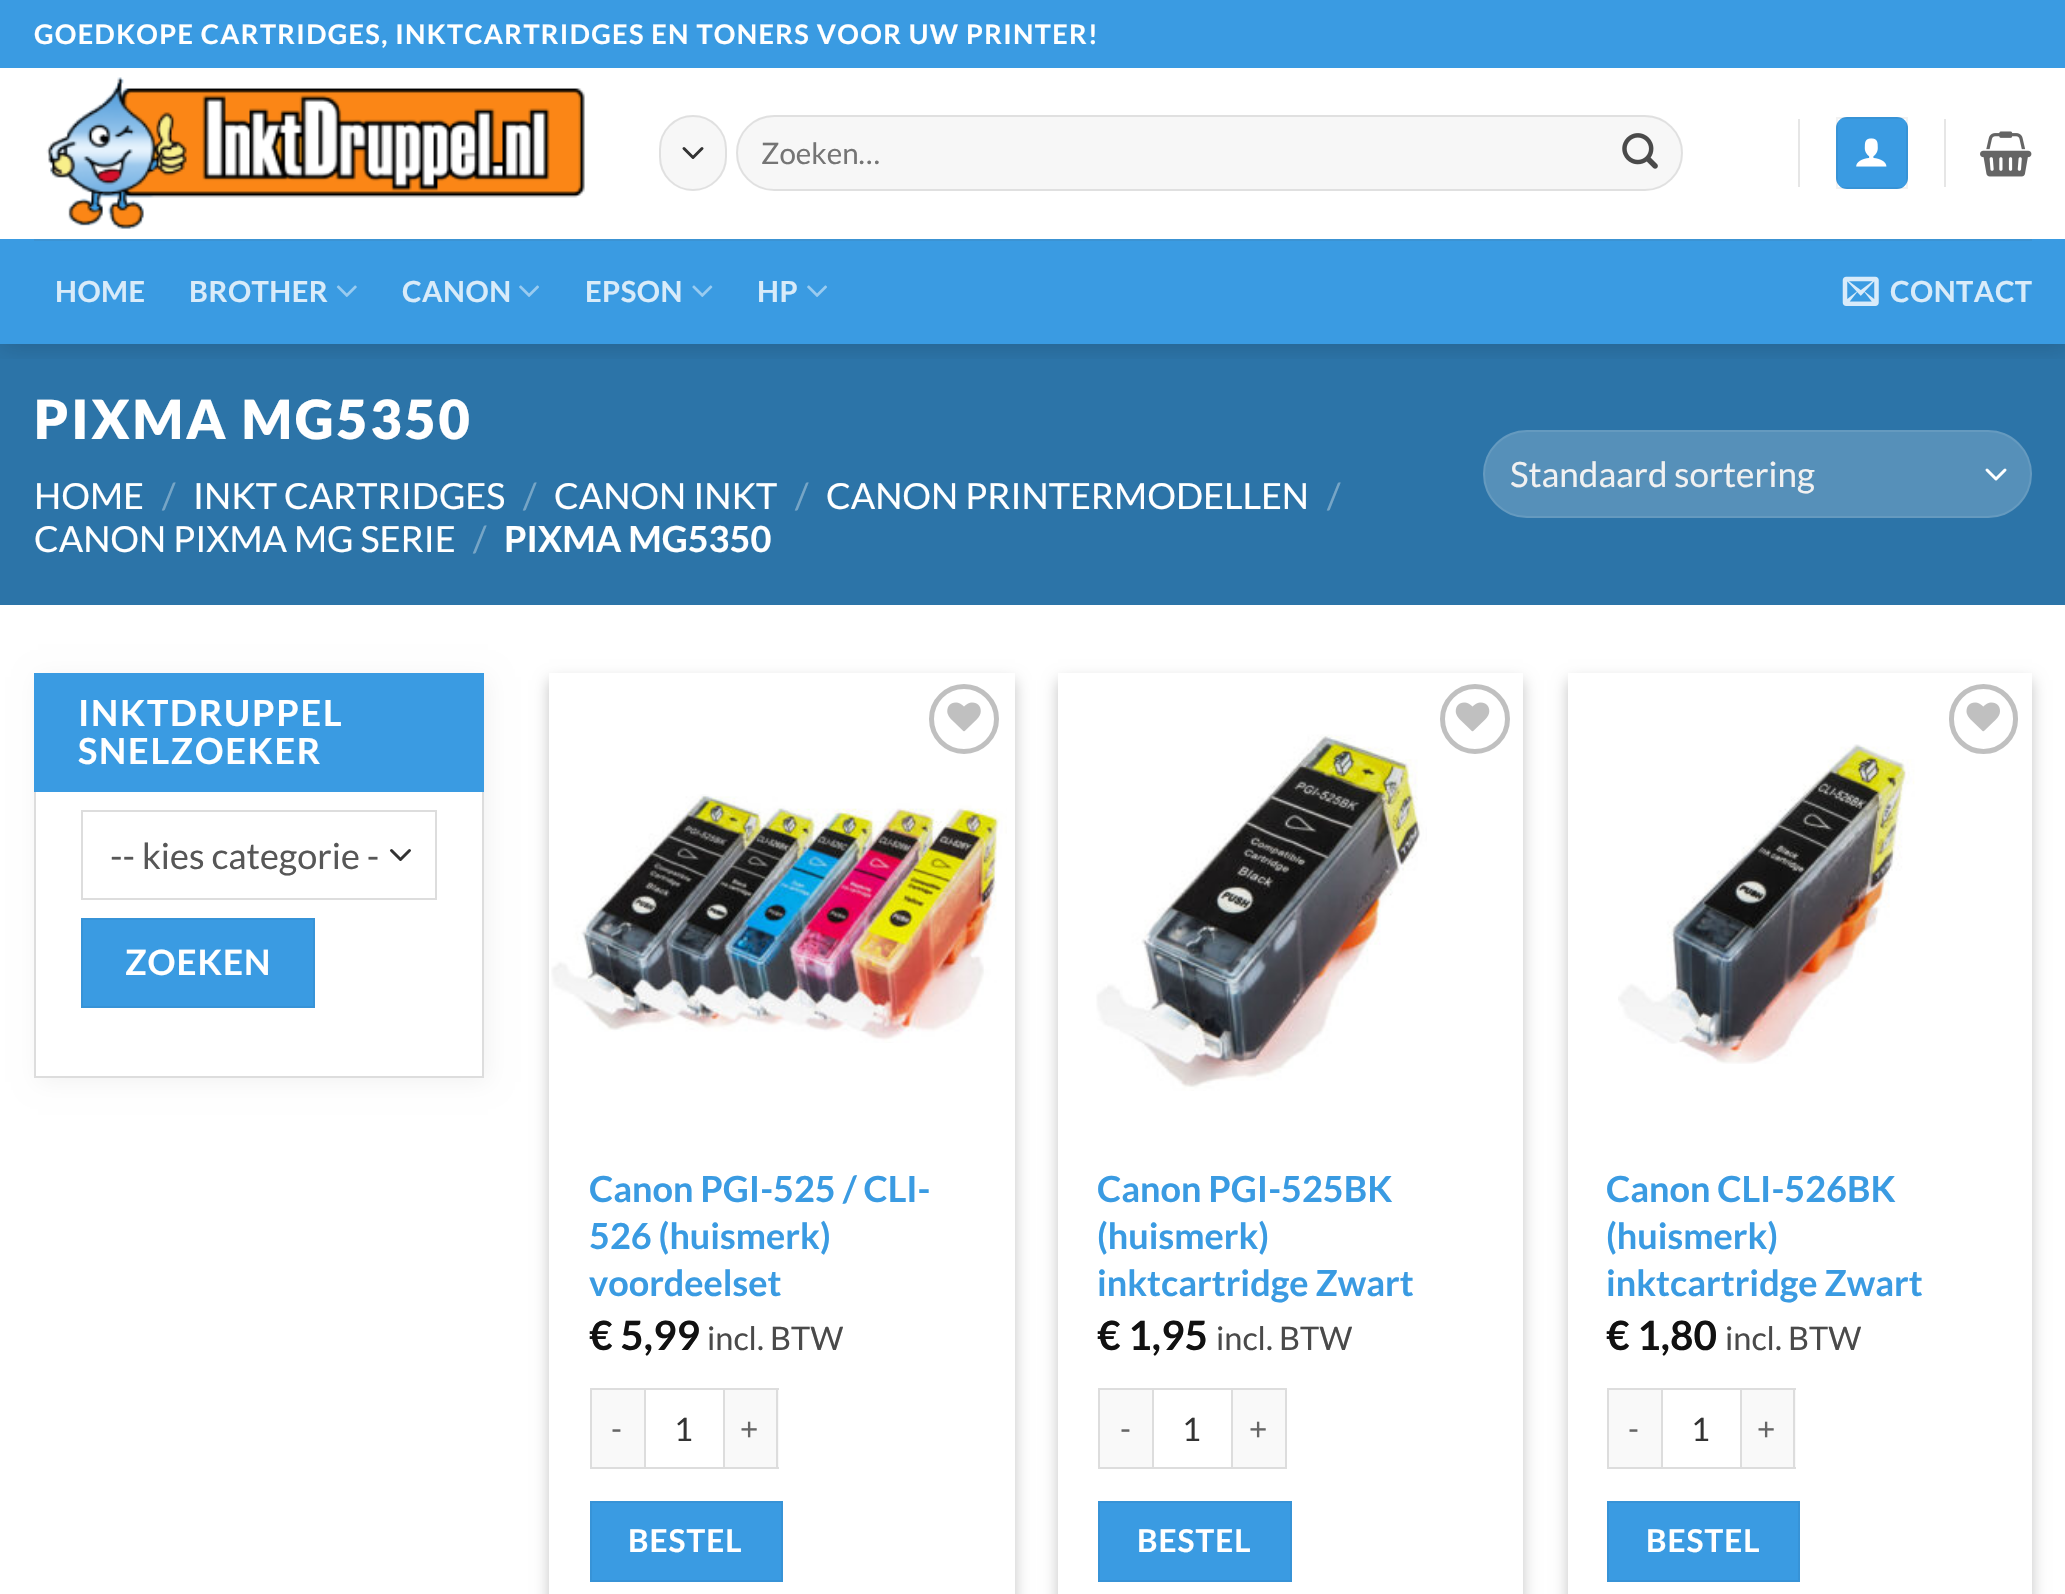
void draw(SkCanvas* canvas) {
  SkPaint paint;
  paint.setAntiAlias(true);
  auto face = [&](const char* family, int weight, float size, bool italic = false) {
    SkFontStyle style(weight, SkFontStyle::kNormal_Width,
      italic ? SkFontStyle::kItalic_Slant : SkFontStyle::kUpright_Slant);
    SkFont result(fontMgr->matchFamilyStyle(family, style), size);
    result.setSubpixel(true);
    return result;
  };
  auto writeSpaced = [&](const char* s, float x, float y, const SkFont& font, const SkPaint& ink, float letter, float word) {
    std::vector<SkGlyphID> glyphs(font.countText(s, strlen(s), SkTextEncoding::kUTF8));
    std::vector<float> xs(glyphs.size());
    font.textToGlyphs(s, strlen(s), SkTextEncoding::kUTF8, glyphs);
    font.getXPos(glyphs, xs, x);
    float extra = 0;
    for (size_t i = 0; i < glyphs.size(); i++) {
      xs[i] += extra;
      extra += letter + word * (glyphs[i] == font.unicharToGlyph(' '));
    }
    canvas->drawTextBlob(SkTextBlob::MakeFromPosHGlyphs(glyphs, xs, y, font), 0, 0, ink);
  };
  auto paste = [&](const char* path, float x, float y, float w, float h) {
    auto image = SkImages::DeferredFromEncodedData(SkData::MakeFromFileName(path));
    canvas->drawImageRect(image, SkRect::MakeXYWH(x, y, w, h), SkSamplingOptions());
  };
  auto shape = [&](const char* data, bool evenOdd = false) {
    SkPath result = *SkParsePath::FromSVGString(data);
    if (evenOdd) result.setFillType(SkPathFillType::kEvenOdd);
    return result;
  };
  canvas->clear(0xffffffff);
  paint.setColor(0xff2c74a8);
  canvas->drawRect(SkRect::MakeXYWH(0, 344, 2065, 261), paint);
  canvas->save();
  canvas->clipRect(SkRect::MakeXYWH(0, 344, 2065, 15));
  paint.setColor(0x26000000);
  paint.setMaskFilter(SkMaskFilter::MakeBlur(kNormal_SkBlurStyle, 11));
  canvas->drawRect(SkRect::MakeXYWH(2, 2, 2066, 345), paint);
  paint.setMaskFilter(nullptr);
  canvas->restore();
  paint.setColor(0xff3a9be2);
  canvas->drawRect(SkRect::MakeXYWH(0, 0, 2065, 68), paint);
  paste("img/1.png", 46, 77, 539, 152);
  paint.setColor(0xfff7f7f7);
  canvas->drawRoundRect(SkRect::MakeXYWH(659, 115, 68, 76), 34, 34, paint);
  paint.setStroke(true);
  paint.setStrokeWidth(3);
  paint.setStrokeCap(SkPaint::kRound_Cap);
  paint.setStrokeJoin(SkPaint::kRound_Join);
  paint.setColor(0xff333333);
  canvas->drawPath(shape("M684 148.5L693 157.5L702 148.5"), paint);
  paint.setStrokeWidth(2);
  paint.setStrokeCap(SkPaint::kButt_Cap);
  paint.setStrokeJoin(SkPaint::kMiter_Join);
  paint.setColor(0x17000000);
  canvas->drawRoundRect(SkRect::MakeXYWH(660, 116, 66, 74), 33, 33, paint);
  paint.setStroke(false);
  paint.setColor(0xfff7f7f7);
  canvas->drawRoundRect(SkRect::MakeXYWH(736, 115, 947, 76), 38, 38, paint);
  paint.setStroke(true);
  paint.setColor(0x17000000);
  canvas->drawRoundRect(SkRect::MakeXYWH(737, 116, 945, 74), 37, 37, paint);
  paste("img/2.png", 1622, 133, 36, 36);
  paint.setStroke(false);
  paint.setColor(0xffe6e6e6);
  canvas->drawRect(SkRect::MakeXYWH(1798, 119, 2, 68), paint);
  paint.setColor(0xff3a9be2);
  canvas->drawRoundRect(SkRect::MakeXYWH(1836, 117, 72, 72), 11, 11, paint);
  paint.setStroke(true);
  paint.setColor(0x0d000000);
  canvas->drawRect(SkRect::MakeXYWH(1837, 118, 70, 70), paint);
  paste("img/3.png", 1856, 138, 31, 29);
  paint.setStroke(false);
  paint.setColor(0xffe6e6e6);
  canvas->drawRect(SkRect::MakeXYWH(1944, 119, 2, 68), paint);
  paste("img/4.png", 1980, 131, 52, 46);
  paint.setColor(0xff3a9be2);
  canvas->drawRect(SkRect::MakeXYWH(0, 239, 2065, 105), paint);
  paint.setColor(0xff3c93d3);
  canvas->drawRect(SkRect::MakeXYWH(34, 239, 1998, 2), paint);
  paste("img/5.png", 336, 285, 21, 12);
  paste("img/6.png", 519, 285, 20, 12);
  paste("img/7.png", 692, 285, 21, 12);
  paste("img/6.png", 807, 285, 20, 12);
  paste("img/8.png", 1842, 276, 37, 30);
  paint.setColor(0xff5690b9);
  canvas->drawRoundRect(SkRect::MakeXYWH(1483, 430, 549, 88), 44, 44, paint);
  paint.setStroke(true);
  paint.setStrokeWidth(3);
  paint.setStrokeCap(SkPaint::kRound_Cap);
  paint.setStrokeJoin(SkPaint::kRound_Join);
  paint.setColor(0xffffffff);
  canvas->drawPath(shape("M1987 470L1996 479L2005 470"), paint);
  paint.setStrokeWidth(2);
  paint.setStrokeCap(SkPaint::kButt_Cap);
  paint.setStrokeJoin(SkPaint::kMiter_Join);
  paint.setColor(0x17ffffff);
  canvas->drawRoundRect(SkRect::MakeXYWH(1484, 431, 547, 86), 43, 43, paint);
  paint.setStroke(false);
  paint.setColor(0x0d000000);
  paint.setMaskFilter(SkMaskFilter::MakeBlur(kNormal_SkBlurStyle, 11));
  canvas->drawRect(SkRect::MakeXYWH(38, 677, 450, 405), paint);
  paint.setMaskFilter(nullptr);
  paint.setColor(0xffffffff);
  canvas->drawRect(SkRect::MakeXYWH(36, 792, 446, 284), paint);
  paint.setStroke(true);
  paint.setColor(0xffdddddd);
  canvas->drawRect(SkRect::MakeXYWH(35, 674, 448, 403), paint);
  paint.setStroke(false);
  paint.setColor(0xff3a9be2);
  canvas->drawRect(SkRect::MakeXYWH(34, 673, 450, 119), paint);
  paint.setStroke(true);
  paint.setStrokeWidth(3);
  paint.setStrokeCap(SkPaint::kRound_Cap);
  paint.setStrokeJoin(SkPaint::kRound_Join);
  paint.setColor(0xff333333);
  canvas->drawPath(shape("M391.5 850.5L400.5 859.5L409.5 850.5"), paint);
  paint.setStrokeWidth(2);
  paint.setStrokeCap(SkPaint::kButt_Cap);
  paint.setStrokeJoin(SkPaint::kMiter_Join);
  paint.setColor(0xffdddddd);
  canvas->drawRect(SkRect::MakeXYWH(82, 811, 354, 88), paint);
  paint.setStroke(false);
  paint.setColor(0xff3a9be2);
  canvas->drawRect(SkRect::MakeXYWH(82, 919, 232, 88), paint);
  paint.setStroke(true);
  paint.setColor(0xff3793d7);
  canvas->drawRect(SkRect::MakeXYWH(82, 919, 232, 88), paint);
  paint.setStroke(false);
  paint.setColor(0x3b000000);
  paint.setMaskFilter(SkMaskFilter::MakeBlur(kNormal_SkBlurStyle, 7));
  canvas->drawRect(SkRect::MakeXYWH(549, 680, 466, 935), paint);
  paint.setMaskFilter(nullptr);
  paint.setColor(0xffffffff);
  canvas->drawRect(SkRect::MakeXYWH(549, 673, 466, 921), paint);
  paint.setStroke(true);
  paint.setStrokeWidth(5);
  paint.setColor(0xffc0c0c0);
  canvas->drawCircle(964, 719, 32.5f, paint);
  paste("img/9.png", 947, 702, 34, 30);
  paste("img/10.png", 551, 794, 456, 249);
  paint.setStroke(false);
  {
    const struct { float x, y, w, h; SkColor color; } items[] = {
      {592, 1390, 52, 77, 0xfff9f9f9},
      {590, 1388, 54, 2, 0xffdddddd},
      {590, 1467, 54, 2, 0xffdddddd},
      {590, 1388, 2, 81, 0xffdddddd},
    };
    for (auto [x, y, w, h, color] : items) {
      paint.setColor(color);
      canvas->drawRect(SkRect::MakeXYWH(x, y, w, h), paint);
    }
  }
  paint.setStroke(true);
  paint.setStrokeWidth(2);
  canvas->drawRect(SkRect::MakeXYWH(645, 1389, 79, 79), paint);
  paint.setStroke(false);
  {
    const struct { float x, y, w, h; SkColor color; } items[] = {
      {725, 1390, 54, 77, 0xfff9f9f9},
      {725, 1388, 54, 2, 0xffdddddd},
      {776, 1388, 2, 81, 0xffdddddd},
      {725, 1467, 54, 2, 0xffdddddd},
    };
    for (auto [x, y, w, h, color] : items) {
      paint.setColor(color);
      canvas->drawRect(SkRect::MakeXYWH(x, y, w, h), paint);
    }
  }
  paint.setColor(0xff3a9be2);
  canvas->drawRect(SkRect::MakeXYWH(591, 1502, 191, 79), paint);
  paint.setStroke(true);
  paint.setColor(0xff3793d7);
  canvas->drawRect(SkRect::MakeXYWH(591, 1502, 191, 79), paint);
  canvas->save();
  canvas->clipPath(shape("M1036 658H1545V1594H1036ZM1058 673H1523V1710H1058Z", true), true);
  paint.setStroke(false);
  paint.setColor(0x3b000000);
  paint.setMaskFilter(SkMaskFilter::MakeBlur(kNormal_SkBlurStyle, 7));
  canvas->drawRect(SkRect::MakeXYWH(1058, 680, 465, 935), paint);
  paint.setMaskFilter(nullptr);
  canvas->restore();
  paint.setStroke(true);
  paint.setStrokeWidth(5);
  paint.setColor(0xffc0c0c0);
  canvas->drawCircle(1475, 719, 32.5f, paint);
  paste("img/11.png", 1455, 702, 35, 30);
  paste("img/12.png", 1096, 734, 331, 357);
  paint.setStroke(false);
  {
    const struct { float x, y, w, h; SkColor color; } items[] = {
      {1100, 1390, 52, 77, 0xfff9f9f9},
      {1098, 1388, 54, 2, 0xffdddddd},
      {1098, 1467, 54, 2, 0xffdddddd},
      {1098, 1388, 2, 81, 0xffdddddd},
    };
    for (auto [x, y, w, h, color] : items) {
      paint.setColor(color);
      canvas->drawRect(SkRect::MakeXYWH(x, y, w, h), paint);
    }
  }
  paint.setStroke(true);
  paint.setStrokeWidth(2);
  canvas->drawRect(SkRect::MakeXYWH(1153, 1389, 79, 79), paint);
  paint.setStroke(false);
  {
    const struct { float x, y, w, h; SkColor color; } items[] = {
      {1233, 1390, 52, 77, 0xfff9f9f9},
      {1233, 1388, 54, 2, 0xffdddddd},
      {1285, 1388, 2, 81, 0xffdddddd},
      {1233, 1467, 54, 2, 0xffdddddd},
    };
    for (auto [x, y, w, h, color] : items) {
      paint.setColor(color);
      canvas->drawRect(SkRect::MakeXYWH(x, y, w, h), paint);
    }
  }
  paint.setColor(0xff3a9be2);
  canvas->drawRect(SkRect::MakeXYWH(1099, 1502, 192, 79), paint);
  paint.setStroke(true);
  paint.setColor(0xff3793d7);
  canvas->drawRect(SkRect::MakeXYWH(1099, 1502, 192, 79), paint);
  paint.setStroke(false);
  paint.setColor(0x3b000000);
  paint.setMaskFilter(SkMaskFilter::MakeBlur(kNormal_SkBlurStyle, 7));
  canvas->drawRect(SkRect::MakeXYWH(1568, 680, 464, 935), paint);
  paint.setMaskFilter(nullptr);
  paint.setColor(0xffffffff);
  canvas->drawRect(SkRect::MakeXYWH(1568, 673, 464, 921), paint);
  paint.setStroke(true);
  paint.setStrokeWidth(5);
  paint.setColor(0xffc0c0c0);
  canvas->drawRoundRect(SkRect::MakeXYWH(1951.5f, 686.5f, 64, 65), 32, 32, paint);
  paste("img/13.png", 1966, 702, 34, 30);
  paste("img/14.png", 1618, 744, 297, 320);
  paint.setStroke(false);
  {
    const struct { float x, y, w, h; SkColor color; } items[] = {
      {1609, 1390, 52, 77, 0xfff9f9f9},
      {1607, 1388, 54, 2, 0xffdddddd},
      {1607, 1467, 54, 2, 0xffdddddd},
      {1607, 1388, 2, 81, 0xffdddddd},
    };
    for (auto [x, y, w, h, color] : items) {
      paint.setColor(color);
      canvas->drawRect(SkRect::MakeXYWH(x, y, w, h), paint);
    }
  }
  paint.setStroke(true);
  paint.setStrokeWidth(2);
  canvas->drawRect(SkRect::MakeXYWH(1662, 1389, 79, 79), paint);
  paint.setStroke(false);
  {
    const struct { float x, y, w, h; SkColor color; } items[] = {
      {1742, 1390, 54, 77, 0xfff9f9f9},
      {1742, 1388, 54, 2, 0xffdddddd},
      {1793, 1388, 2, 81, 0xffdddddd},
      {1742, 1467, 54, 2, 0xffdddddd},
    };
    for (auto [x, y, w, h, color] : items) {
      paint.setColor(color);
      canvas->drawRect(SkRect::MakeXYWH(x, y, w, h), paint);
    }
  }
  paint.setColor(0xff3a9be2);
  canvas->drawRect(SkRect::MakeXYWH(1608, 1502, 191, 79), paint);
  paint.setStroke(true);
  paint.setColor(0xff3793d7);
  canvas->drawRect(SkRect::MakeXYWH(1608, 1502, 191, 79), paint);
  auto f0 = face("Lato", 700, 27);
  paint.setStroke(false);
  paint.setColor(0xffffffff);
  writeSpaced("GOEDKOPE CARTRIDGES, INKTCARTRIDGES EN TONERS VOOR UW PRINTER!", 34, 44, f0, paint, 1.35f, 0);
  auto f1 = face("Lato", 400, 29.5f);
  paint.setColor(0xff757575);
  canvas->drawString("Zoeken…", 761, 164, f1, paint);
  auto f2 = face("Lato", 700, 29);
  paint.setColor(0xffd8ebf9);
  {
    const struct { const char* s; float x, y; } items[] = {
      {"HOME", 55, 302},
      {"BROTHER", 189, 302},
      {"CANON", 402, 302},
      {"EPSON", 585, 302},
      {"HP", 757, 302},
      {"CONTACT", 1890, 302},
    };
    for (auto [s, x, y] : items) {
      writeSpaced(s, x, y, f2, paint, 0.5f, 0);
    }
  }
  auto f3 = face("Lato", 900, 54);
  paint.setColor(0xffffffff);
  writeSpaced("PIXMA MG5350", 34, 439, f3, paint, 2.75f, 0);
  auto f4 = face("Lato", 400, 36);
  canvas->drawString("HOME", 34, 509, f4, paint);
  paint.setColor(0xff76a5c6);
  canvas->drawString("/", 162, 509, f4, paint);
  paint.setColor(0xffffffff);
  canvas->drawString("INKT CARTRIDGES", 193, 509, f4, paint);
  paint.setColor(0xff76a5c6);
  canvas->drawString("/", 523, 509, f4, paint);
  paint.setColor(0xffffffff);
  canvas->drawString("CANON INKT", 554, 509, f4, paint);
  paint.setColor(0xff76a5c6);
  canvas->drawString("/", 795, 509, f4, paint);
  paint.setColor(0xffffffff);
  canvas->drawString("CANON PRINTERMODELLEN", 826, 509, f4, paint);
  paint.setColor(0xff76a5c6);
  canvas->drawString("/", 1327, 509, f4, paint);
  paint.setColor(0xffffffff);
  canvas->drawString("CANON PIXMA MG SERIE", 34, 552, f4, paint);
  paint.setColor(0xff76a5c6);
  canvas->drawString("/", 473, 552, f4, paint);
  auto f5 = face("Lato", 700, 36);
  paint.setColor(0xffffffff);
  canvas->drawString("PIXMA MG5350", 504, 552, f5, paint);
  auto f6 = face("Lato", 400, 35);
  paint.setColor(0xfff1f1f1);
  canvas->drawString("Standaard sortering", 1510, 487, f6, paint);
  paint.setColor(0xffffffff);
  writeSpaced("INKTDRUPPEL", 78, 726, f5, paint, 1.75f, 0);
  writeSpaced("SNELZOEKER", 78, 764, f5, paint, 1.75f, 0);
  paint.setColor(0xff575757);
  canvas->drawString("-- kies categorie -", 110, 869, f4, paint);
  auto f7 = face("Lato", 700, 35);
  paint.setColor(0xffffffff);
  writeSpaced("ZOEKEN", 125, 975, f7, paint, 1, 0);
  paint.setColor(0xff3a9be2);
  {
    const struct { const char* s; float x, y; } items[] = {
      {"Canon PGI-525 / CLI-", 589, 1202},
      {"526 (huismerk)", 589, 1249},
      {"voordeelset", 589, 1296},
    };
    for (auto [s, x, y] : items) {
      canvas->drawString(s, x, y, f5, paint);
    }
  }
  auto f8 = face("Lato", 700, 40.5f);
  paint.setColor(0xff111111);
  canvas->drawString("€ 5,99", 589, 1350, f8, paint);
  auto f9 = face("Lato", 400, 32.5f);
  paint.setColor(0xff4a4a4a);
  canvas->drawString("incl. BTW", 707, 1350, f9, paint);
  auto f10 = face("Lato", 400, 31.5f);
  paint.setColor(0xff666666);
  writeSpaced("-", 611, 1440, f10, paint, 1, 0);
  paint.setColor(0xff333333);
  canvas->drawString("1", 674, 1441, f9, paint);
  paint.setColor(0xff666666);
  writeSpaced("+", 740, 1440, f10, paint, 1, 0);
  auto f11 = face("Lato", 700, 31.5f);
  paint.setColor(0xffffffff);
  writeSpaced("BESTEL", 628, 1552, f11, paint, 1, 0);
  paint.setColor(0xff3a9be2);
  {
    const struct { const char* s; float x, y; } items[] = {
      {"Canon PGI-525BK", 1097, 1202},
      {"(huismerk)", 1097, 1249},
      {"inktcartridge Zwart", 1097, 1296},
    };
    for (auto [s, x, y] : items) {
      canvas->drawString(s, x, y, f5, paint);
    }
  }
  paint.setColor(0xff111111);
  canvas->drawString("€ 1,95", 1097, 1350, f8, paint);
  paint.setColor(0xff4a4a4a);
  canvas->drawString("incl. BTW", 1216, 1350, f9, paint);
  paint.setColor(0xff666666);
  writeSpaced("-", 1120, 1440, f10, paint, 1, 0);
  paint.setColor(0xff333333);
  canvas->drawString("1", 1182, 1441, f9, paint);
  paint.setColor(0xff666666);
  writeSpaced("+", 1249, 1440, f10, paint, 1, 0);
  paint.setColor(0xffffffff);
  writeSpaced("BESTEL", 1137, 1552, f11, paint, 1, 0);
  paint.setColor(0xff3a9be2);
  {
    const struct { const char* s; float x, y; } items[] = {
      {"Canon CLI-526BK", 1606, 1202},
      {"(huismerk)", 1606, 1249},
      {"inktcartridge Zwart", 1606, 1296},
    };
    for (auto [s, x, y] : items) {
      canvas->drawString(s, x, y, f5, paint);
    }
  }
  paint.setColor(0xff111111);
  canvas->drawString("€ 1,80", 1606, 1350, f8, paint);
  paint.setColor(0xff4a4a4a);
  canvas->drawString("incl. BTW", 1725, 1350, f9, paint);
  paint.setColor(0xff666666);
  writeSpaced("-", 1628, 1440, f10, paint, 1, 0);
  paint.setColor(0xff333333);
  canvas->drawString("1", 1691, 1441, f9, paint);
  paint.setColor(0xff666666);
  writeSpaced("+", 1757, 1440, f10, paint, 1, 0);
  paint.setColor(0xffffffff);
  writeSpaced("BESTEL", 1646, 1552, f11, paint, 1, 0);
}
